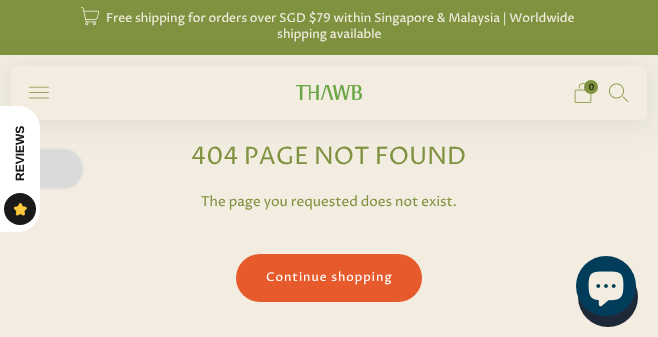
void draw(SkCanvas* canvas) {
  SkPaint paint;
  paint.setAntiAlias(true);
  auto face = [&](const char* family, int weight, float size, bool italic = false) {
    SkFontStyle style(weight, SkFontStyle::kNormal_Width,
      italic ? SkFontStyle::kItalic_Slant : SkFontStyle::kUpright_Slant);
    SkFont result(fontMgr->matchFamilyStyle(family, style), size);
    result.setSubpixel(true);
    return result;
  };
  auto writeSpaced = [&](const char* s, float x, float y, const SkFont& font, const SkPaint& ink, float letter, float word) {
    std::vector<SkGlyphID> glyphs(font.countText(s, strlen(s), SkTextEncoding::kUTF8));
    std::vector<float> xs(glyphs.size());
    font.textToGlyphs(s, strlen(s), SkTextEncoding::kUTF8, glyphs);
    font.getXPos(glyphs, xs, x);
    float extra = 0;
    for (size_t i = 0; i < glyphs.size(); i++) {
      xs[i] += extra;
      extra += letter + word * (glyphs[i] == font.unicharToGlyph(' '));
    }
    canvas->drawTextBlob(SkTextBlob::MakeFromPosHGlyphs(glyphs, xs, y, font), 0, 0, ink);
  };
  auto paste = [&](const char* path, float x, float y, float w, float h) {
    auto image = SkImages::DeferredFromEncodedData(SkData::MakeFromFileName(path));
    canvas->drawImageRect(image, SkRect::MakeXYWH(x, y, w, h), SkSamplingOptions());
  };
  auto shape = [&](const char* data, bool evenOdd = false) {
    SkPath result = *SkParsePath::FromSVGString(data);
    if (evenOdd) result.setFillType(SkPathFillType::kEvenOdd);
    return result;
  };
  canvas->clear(0xfff2ede0);
  paint.setColor(0xffdadada);
  paint.setMaskFilter(SkMaskFilter::MakeBlur(kNormal_SkBlurStyle, 1));
  canvas->drawRoundRect(SkRect::MakeXYWH(-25, 149, 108, 40), 22, 22, paint);
  paint.setMaskFilter(nullptr);
  paint.setColor(0xff7f923f);
  canvas->drawRect(SkRect::MakeXYWH(0, 0, 658, 55), paint);
  paint.setColor(0x14000000);
  paint.setMaskFilter(SkMaskFilter::MakeBlur(kNormal_SkBlurStyle, 12));
  canvas->drawRoundRect(SkRect::MakeXYWH(11, 70, 636, 54), 6, 6, paint);
  paint.setMaskFilter(nullptr);
  paint.setColor(0xfff2ede0);
  canvas->drawRoundRect(SkRect::MakeXYWH(11, 66, 636, 54), 6, 6, paint);
  paint.setColor(0xffffffff);
  canvas->drawPath(shape("M0 232V106H18C30 106 40 115 40 128V210C40 222 30 232 18 232Z"), paint);
  paint.setColor(0xff1a1a1a);
  canvas->drawCircle(20, 209, 16, paint);
  paste("img/1.png", 13, 203, 14, 13);
  paint.setColor(0xff1d2939);
  canvas->drawCircle(608, 297, 30, paint);
  paste("img/2.png", 81, 7, 19, 19);
  paste("img/3.png", 29, 86, 20, 13);
  paste("img/4.png", 296, 85, 66, 15);
  paste("img/5.png", 574, 83, 18, 20);
  paint.setColor(0xff7f923f);
  canvas->drawCircle(591, 87, 7, paint);
  paste("img/6.png", 609, 83, 20, 19);
  paint.setColor(0xffe65a2c);
  canvas->drawRoundRect(SkRect::MakeXYWH(236, 254, 186, 48), 24, 24, paint);
  paint.setColor(0xff013d5a);
  canvas->drawCircle(606, 286, 30, paint);
  paste("img/7.png", 588, 271, 36, 36);
  auto f0 = face("Liberation Sans", 700, 12);
  paint.setColor(0xff1a1a1a);
  canvas->save();
  canvas->rotate(-90, 24, 181);
  canvas->drawString("REVIEWS", 24, 181, f0, paint);
  canvas->restore();
  auto f1 = face("Proza Libre", 400, 12.25f);
  paint.setColor(0xfff2ede0);
  canvas->drawString("Free shipping for orders over SGD $79 within Singapore & Malaysia | Worldwide", 106, 22, f1, paint);
  canvas->drawString("shipping available", 277, 38, f1, paint);
  auto f2 = face("Liberation Sans", 400, 9);
  paint.setColor(0xff000000);
  canvas->drawString("0", 589, 90, f2, paint);
  auto f3 = face("Proza Libre", 400, 24);
  paint.setColor(0xff7f923f);
  canvas->drawString("404 PAGE NOT FOUND", 191, 164, f3, paint);
  auto f4 = face("Proza Libre", 400, 13.6f);
  canvas->drawString("The page you requested does not exist.", 201, 206, f4, paint);
  auto f5 = face("Proza Libre", 400, 12);
  paint.setColor(0xffffffff);
  writeSpaced("Continue shopping", 266, 281, f5, paint, 1, 0);
}
